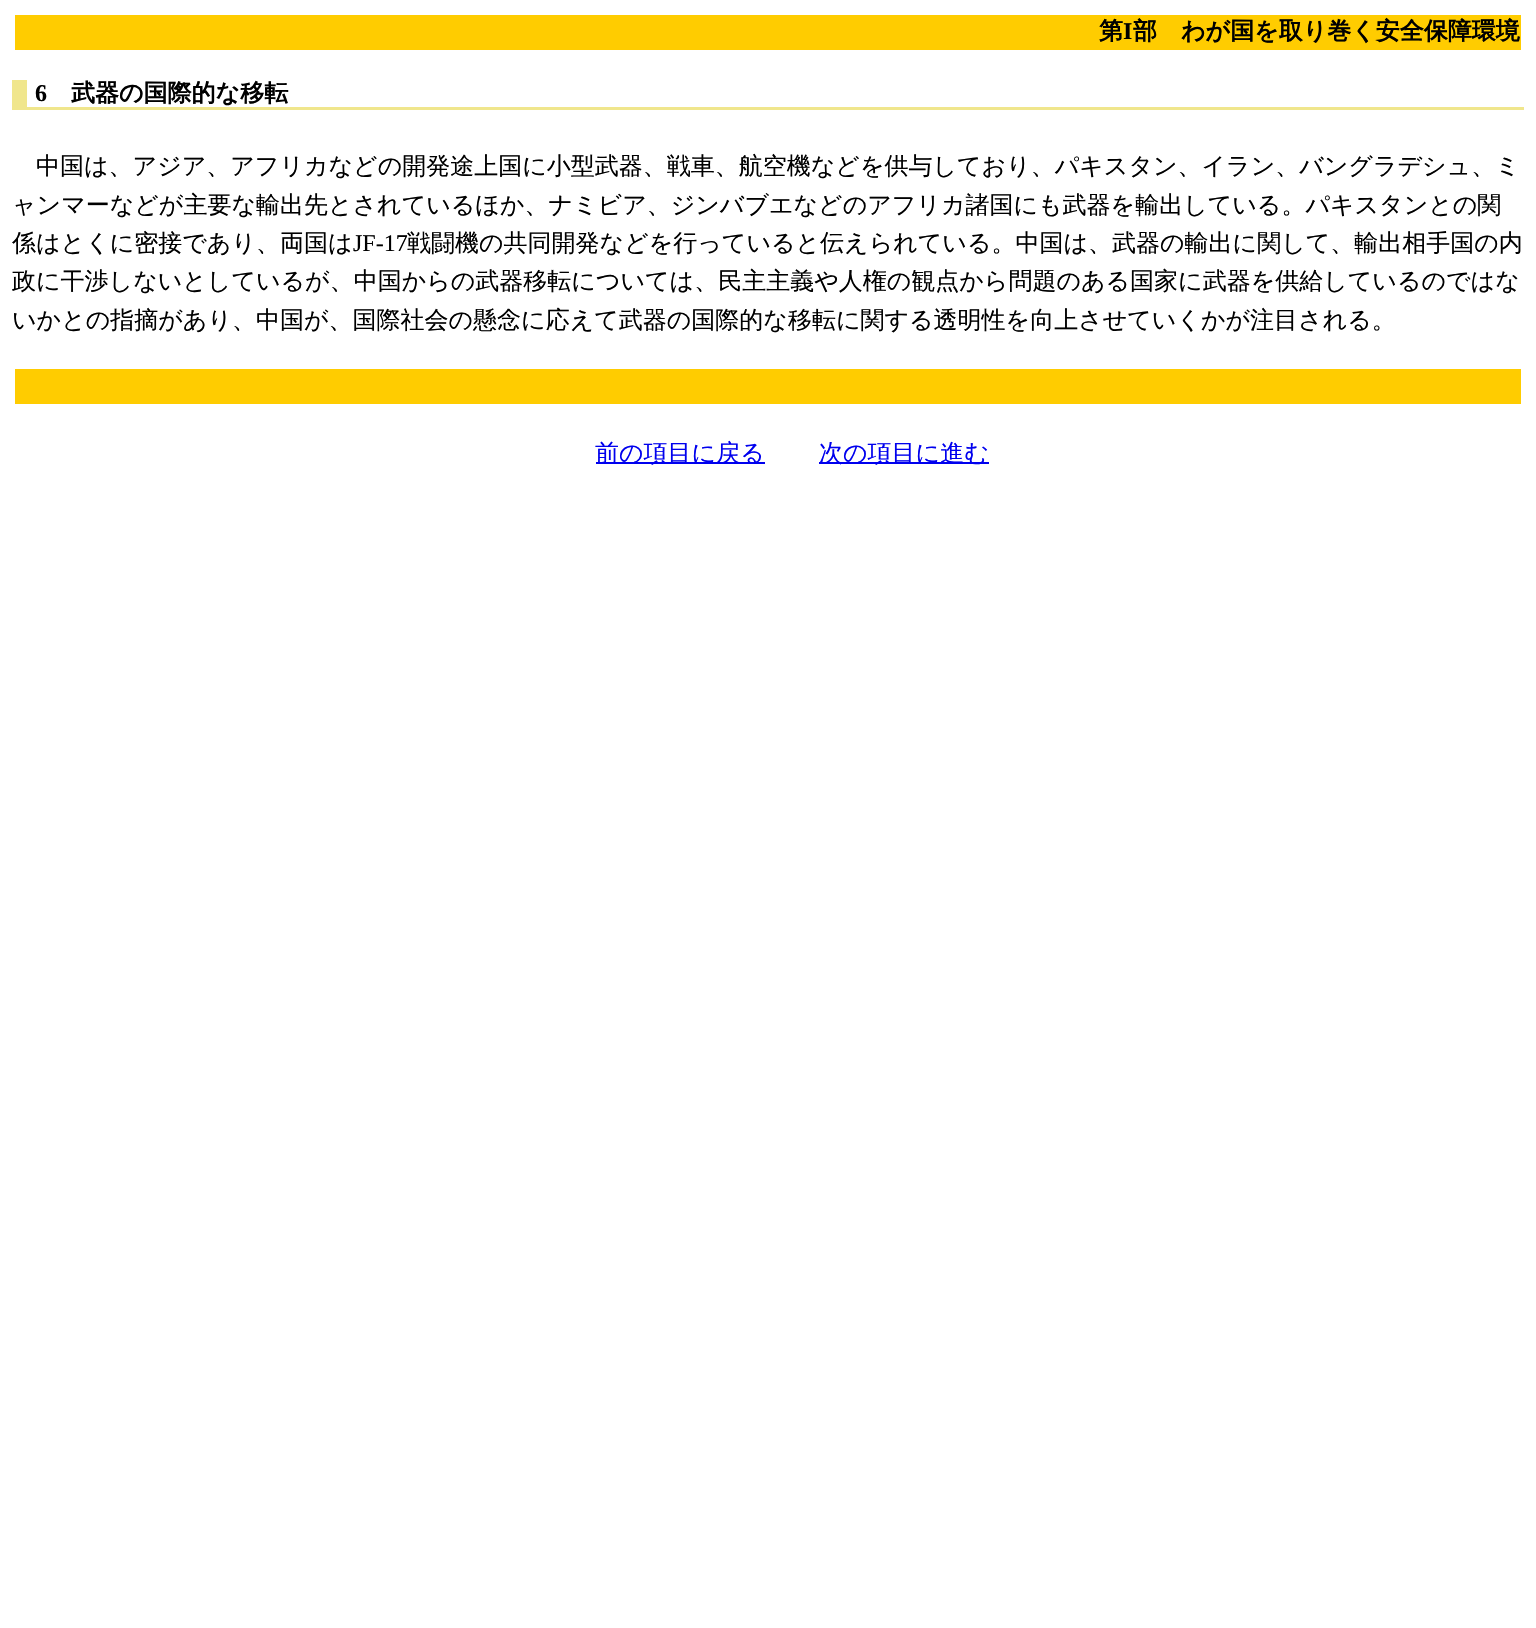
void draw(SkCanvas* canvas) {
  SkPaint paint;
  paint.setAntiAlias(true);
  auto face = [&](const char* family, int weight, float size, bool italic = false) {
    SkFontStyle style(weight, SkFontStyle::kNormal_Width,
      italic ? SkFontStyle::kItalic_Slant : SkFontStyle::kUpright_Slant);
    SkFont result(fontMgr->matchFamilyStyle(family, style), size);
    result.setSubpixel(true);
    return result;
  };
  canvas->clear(0xffffffff);
  {
    const struct { float x, y, w, h; SkColor color; } items[] = {
      {15, 15, 1506, 35, 0xffffcc00},
      {27, 107, 1497, 3, 0xfff0e68c},
      {12, 80, 15, 30, 0xfff0e68c},
      {15, 369, 1506, 35, 0xffffcc00},
      {596, 462, 169, 2, 0xff0000ee},
      {819, 462, 170, 2, 0xff0000ee},
    };
    for (auto [x, y, w, h, color] : items) {
      paint.setColor(color);
      canvas->drawRect(SkRect::MakeXYWH(x, y, w, h), paint);
    }
  }
  auto f0 = face("WenQuanYi Zen Hei", 700, 24);
  paint.setColor(0xff000000);
  canvas->drawString("第", 1099, 39, f0, paint);
  auto f1 = face("Liberation Serif", 700, 24);
  canvas->drawString("I", 1123, 39, f1, paint);
  canvas->drawString("部　わが国を取り巻く安全保障環境", 1133, 39, f0, paint);
  canvas->drawString("6", 35, 101, f1, paint);
  canvas->drawString("武器の国際的な移転", 71, 101, f0, paint);
  auto f2 = face("WenQuanYi Zen Hei", 500, 24);
  {
    const struct { const char* s; float x, y; } items[] = {
      {"中国は、アジア、アフリカなどの開発途上国に小型武器、戦車、航空機などを供与しており、パキスタン、イラン、バングラデシュ、ミ", 36, 174},
      {"ャンマーなどが主要な輸出先とされているほか、ナミビア、ジンバブエなどのアフリカ諸国にも武器を輸出している。パキスタンとの関", 12, 213},
      {"係はとくに密接であり、両国は", 12, 251},
    };
    for (auto [s, x, y] : items) {
      canvas->drawString(s, x, y, f2, paint);
    }
  }
  auto f3 = face("Liberation Serif", 400, 24);
  canvas->drawString("JF-17", 353, 251, f3, paint);
  {
    const struct { const char* s; float x, y; } items[] = {
      {"戦闘機の共同開発などを行っていると伝えられている。中国は、武器の輸出に関して、輸出相手国の内", 407, 251},
      {"政に干渉しないとしているが、中国からの武器移転については、民主主義や人権の観点から問題のある国家に武器を供給しているのではな", 12, 289},
      {"いかとの指摘があり、中国が、国際社会の懸念に応えて武器の国際的な移転に関する透明性を向上させていくかが注目される。", 12, 328},
    };
    for (auto [s, x, y] : items) {
      canvas->drawString(s, x, y, f2, paint);
    }
  }
  paint.setColor(0xff0000ee);
  canvas->drawString("前の項目に戻る", 595, 461, f2, paint);
  canvas->drawString("次の項目に進む", 819, 461, f2, paint);
}
